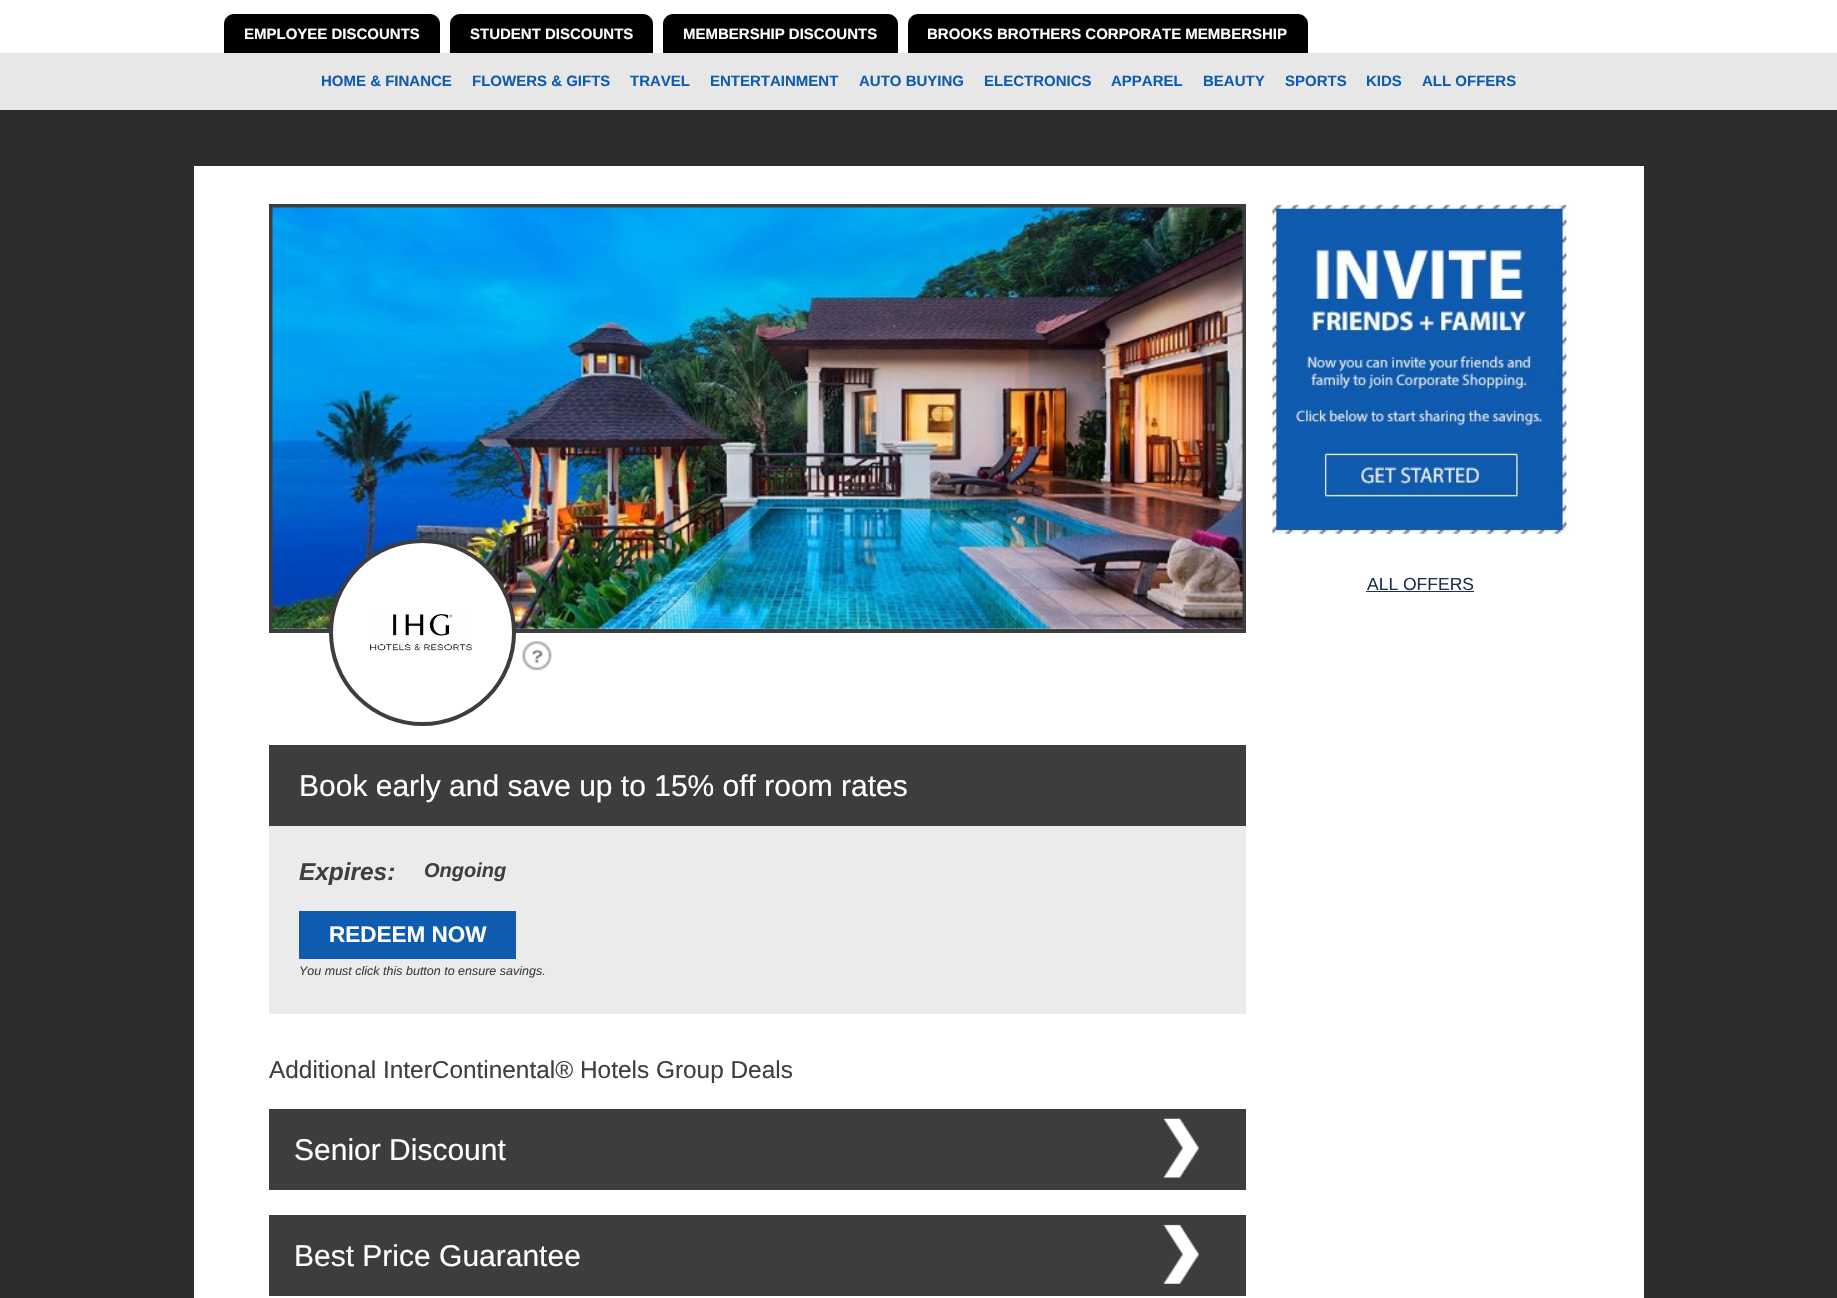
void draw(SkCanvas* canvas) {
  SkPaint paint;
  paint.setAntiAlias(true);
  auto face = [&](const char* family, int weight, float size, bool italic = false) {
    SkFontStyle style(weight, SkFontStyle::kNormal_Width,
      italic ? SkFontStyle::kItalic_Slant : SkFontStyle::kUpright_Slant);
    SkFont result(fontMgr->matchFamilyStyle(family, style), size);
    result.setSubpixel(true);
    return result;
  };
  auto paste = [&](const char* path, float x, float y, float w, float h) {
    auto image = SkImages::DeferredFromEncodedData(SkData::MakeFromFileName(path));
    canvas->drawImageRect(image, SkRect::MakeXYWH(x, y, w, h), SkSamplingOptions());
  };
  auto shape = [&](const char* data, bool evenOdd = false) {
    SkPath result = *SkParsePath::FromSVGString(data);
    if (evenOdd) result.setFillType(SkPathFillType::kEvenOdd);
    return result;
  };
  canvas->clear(0xff2d2d2d);
  paint.setColor(0xffffffff);
  canvas->drawRect(SkRect::MakeXYWH(0, 0, 1837, 53), paint);
  paint.setColor(0xff000000);
  canvas->drawPath(shape("M234 14H430C435.5 14 440 18.5 440 24V53H224V24C224 18.5 228.5 14 234 14Z"), paint);
  canvas->drawPath(shape("M460 14H643C648.5 14 653 18.5 653 24V53H450V24C450 18.5 454.5 14 460 14Z"), paint);
  canvas->drawPath(shape("M673 14H888C893.5 14 898 18.5 898 24V53H663V24C663 18.5 667.5 14 673 14Z"), paint);
  canvas->drawPath(shape("M918 14H1298C1303.5 14 1308 18.5 1308 24V53H908V24C908 18.5 912.5 14 918 14Z"), paint);
  paint.setColor(0xffe7e7e7);
  canvas->drawRect(SkRect::MakeXYWH(0, 53, 1837, 57), paint);
  paint.setColor(0xffffffff);
  canvas->drawRect(SkRect::MakeXYWH(194, 166, 1450, 1132), paint);
  paste("img/1.png", 1271, 204, 298, 330);
  paint.setColor(0xff1a3151);
  canvas->drawRect(SkRect::MakeXYWH(1366, 591, 108, 1), paint);
  paint.setStroke(true);
  paint.setStrokeWidth(4);
  paint.setColor(0xff3d3d3d);
  canvas->drawRect(SkRect::MakeXYWH(271, 206, 973, 425), paint);
  paste("img/2.png", 272, 207, 971, 422);
  paint.setStroke(false);
  paint.setColor(0xffffffff);
  canvas->drawCircle(422.5f, 632.5f, 91.5f, paint);
  paint.setStroke(true);
  paint.setColor(0xff3d3d3d);
  canvas->drawCircle(422.5f, 632.5f, 91.5f, paint);
  paste("img/3.png", 369, 614, 103, 37);
  paste("img/4.png", 522, 641, 30, 30);
  paint.setStroke(false);
  {
    const struct { float x, y, w, h; SkColor color; } items[] = {
      {269, 745, 977, 81, 0xff3d3d3d},
      {269, 826, 977, 188, 0xffebebeb},
      {299, 911, 217, 48, 0xff0f5bb0},
      {269, 1109, 977, 81, 0xff3d3d3d},
    };
    for (auto [x, y, w, h, color] : items) {
      paint.setColor(color);
      canvas->drawRect(SkRect::MakeXYWH(x, y, w, h), paint);
    }
  }
  paste("img/5.png", 1163, 1118, 36, 60);
  canvas->drawRect(SkRect::MakeXYWH(269, 1215, 977, 81), paint);
  paste("img/6.png", 1163, 1224, 36, 60);
  auto f0 = face("Liberation Sans", 700, 15);
  paint.setColor(0xffffffff);
  {
    const struct { const char* s; float x, y; } items[] = {
      {"EMPLOYEE DISCOUNTS", 244, 39},
      {"STUDENT DISCOUNTS", 470, 39},
      {"MEMBERSHIP DISCOUNTS", 683, 39},
      {"BROOKS BROTHERS CORPORATE MEMBERSHIP", 927, 39},
    };
    for (auto [s, x, y] : items) {
      canvas->drawString(s, x, y, f0, paint);
    }
  }
  paint.setColor(0xff0f5bb0);
  {
    const struct { const char* s; float x, y; } items[] = {
      {"HOME & FINANCE", 321, 86},
      {"FLOWERS & GIFTS", 472, 86},
      {"TRAVEL", 630, 86},
      {"ENTERTAINMENT", 710, 86},
      {"AUTO BUYING", 859, 86},
      {"ELECTRONICS", 984, 86},
      {"APPAREL", 1111, 86},
      {"BEAUTY", 1203, 86},
      {"SPORTS", 1285, 86},
      {"KIDS", 1366, 86},
      {"ALL OFFERS", 1422, 86},
    };
    for (auto [s, x, y] : items) {
      canvas->drawString(s, x, y, f0, paint);
    }
  }
  auto f1 = face("Liberation Sans", 400, 17.5f);
  paint.setColor(0xff1a3151);
  canvas->drawString("ALL OFFERS", 1367, 590, f1, paint);
  auto f2 = face("Liberation Sans", 400, 30);
  paint.setColor(0xffffffff);
  canvas->drawString("Book early and save up to 15% off room rates", 299, 796, f2, paint);
  auto f3 = face("Liberation Sans", 700, 24.4f, true);
  paint.setColor(0xff3f3f3f);
  canvas->drawString("Expires:", 299, 880, f3, paint);
  auto f4 = face("Liberation Sans", 700, 20, true);
  canvas->drawString("Ongoing", 424, 877, f4, paint);
  auto f5 = face("Liberation Sans", 700, 22.5f);
  paint.setColor(0xffffffff);
  canvas->drawString("REDEEM NOW", 329, 942, f5, paint);
  auto f6 = face("Liberation Sans", 400, 12.5f, true);
  paint.setColor(0xff3f3f3f);
  canvas->drawString("You must click this button to ensure savings.", 299, 975, f6, paint);
  auto f7 = face("Liberation Sans", 400, 24.4f);
  canvas->drawString("Additional InterContinental® Hotels Group Deals", 269, 1078, f7, paint);
  paint.setColor(0xffffffff);
  canvas->drawString("Senior Discount", 294, 1160, f2, paint);
  canvas->drawString("Best Price Guarantee", 294, 1266, f2, paint);
}
